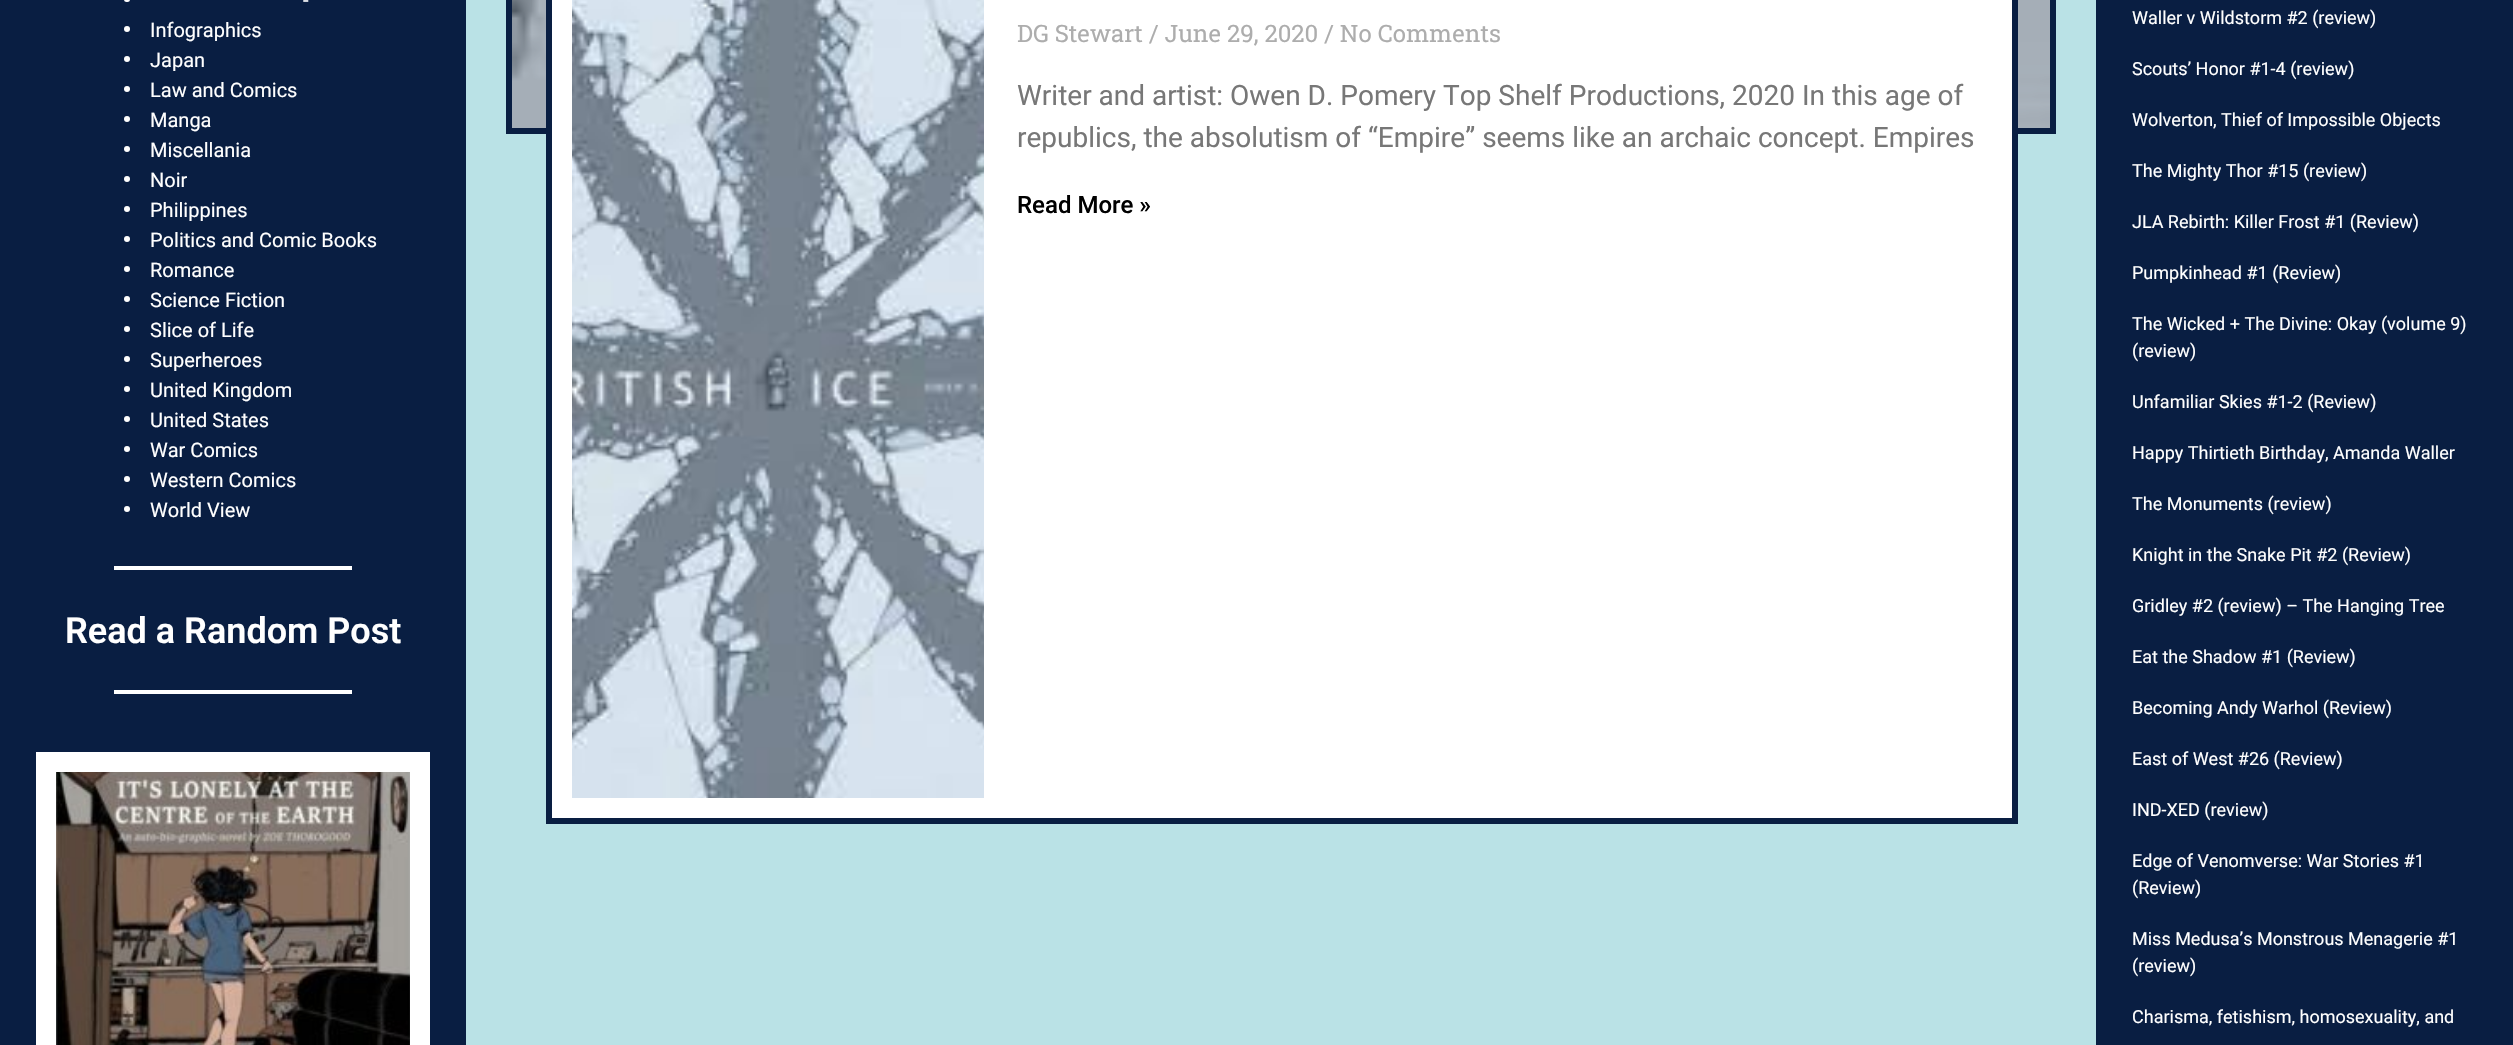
void draw(SkCanvas* canvas) {
  SkPaint paint;
  paint.setAntiAlias(true);
  auto face = [&](const char* family, int weight, float size, bool italic = false) {
    SkFontStyle style(weight, SkFontStyle::kNormal_Width,
      italic ? SkFontStyle::kItalic_Slant : SkFontStyle::kUpright_Slant);
    SkFont result(fontMgr->matchFamilyStyle(family, style), size);
    result.setSubpixel(true);
    return result;
  };
  auto paste = [&](const char* path, float x, float y, float w, float h) {
    auto image = SkImages::DeferredFromEncodedData(SkData::MakeFromFileName(path));
    canvas->drawImageRect(image, SkRect::MakeXYWH(x, y, w, h), SkSamplingOptions());
  };
  canvas->clear(0xffbae2e6);
  paint.setColor(0xff091e42);
  canvas->drawRect(SkRect::MakeXYWH(0, 0, 466, 1045), paint);
  paint.setColor(0xffffffff);
  canvas->drawRoundRect(SkRect::MakeXYWH(124, -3, 6, 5), 3, 3, paint);
  canvas->drawCircle(127, 29, 3, paint);
  canvas->drawCircle(127, 59, 3, paint);
  canvas->drawCircle(127, 89, 3, paint);
  canvas->drawCircle(127, 119, 3, paint);
  canvas->drawCircle(127, 149, 3, paint);
  canvas->drawCircle(127, 179, 3, paint);
  canvas->drawCircle(127, 209, 3, paint);
  canvas->drawCircle(127, 239, 3, paint);
  canvas->drawCircle(127, 269, 3, paint);
  canvas->drawCircle(127, 299, 3, paint);
  canvas->drawCircle(127, 329, 3, paint);
  canvas->drawCircle(127, 359, 3, paint);
  canvas->drawCircle(127, 389, 3, paint);
  canvas->drawCircle(127, 419, 3, paint);
  canvas->drawCircle(127, 449, 3, paint);
  canvas->drawCircle(127, 479, 3, paint);
  canvas->drawCircle(127, 509, 3, paint);
  {
    const struct { float x, y, w, h; SkColor color; } items[] = {
      {114, 566, 238, 4, 0xffffffff},
      {114, 690, 238, 4, 0xffffffff},
      {36, 752, 394, 293, 0xffffffff},
    };
    for (auto [x, y, w, h, color] : items) {
      paint.setColor(color);
      canvas->drawRect(SkRect::MakeXYWH(x, y, w, h), paint);
    }
  }
  paste("img/1.png", 56, 772, 354, 273);
  paste("img/2.png", 512, 0, 1538, 128);
  paint.setStroke(true);
  paint.setStrokeWidth(6);
  paint.setColor(0xff091e42);
  canvas->drawRect(SkRect::MakeXYWH(509, -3, 1544, 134), paint);
  paint.setStroke(false);
  paint.setColor(0xffffffff);
  canvas->drawRect(SkRect::MakeXYWH(549, -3, 1466, 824), paint);
  paint.setStroke(true);
  paint.setColor(0xff091e42);
  canvas->drawRect(SkRect::MakeXYWH(549, -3, 1466, 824), paint);
  paste("img/3.png", 572, 0, 412, 798);
  paint.setStroke(false);
  canvas->drawRect(SkRect::MakeXYWH(2096, 0, 417, 1045), paint);
  auto f0 = face("Roboto", 400, 20);
  paint.setColor(0xffffffff);
  {
    const struct { const char* s; float x, y; } items[] = {
      {"-", 303, 7},
      {"Infographics", 150, 37},
      {"Japan", 150, 67},
      {"Law and Comics", 150, 97},
      {"Manga", 150, 127},
      {"Miscellania", 150, 157},
      {"Noir", 150, 187},
      {"Philippines", 150, 217},
      {"Politics and Comic Books", 150, 247},
      {"Romance", 150, 277},
      {"Science Fiction", 150, 307},
      {"Slice of Life", 150, 337},
      {"Superheroes", 150, 367},
      {"United Kingdom", 150, 397},
      {"United States", 150, 427},
      {"War Comics", 150, 457},
      {"Western Comics", 150, 487},
      {"World View", 150, 517},
    };
    for (auto [s, x, y] : items) {
      canvas->drawString(s, x, y, f0, paint);
    }
  }
  auto f1 = face("Roboto", 600, 36);
  canvas->drawString("Read a Random Post", 65, 643, f1, paint);
  auto f2 = face("Roboto Slab", 400, 24);
  paint.setColor(0xffadadad);
  canvas->drawString("DG Stewart / June 29, 2020 / No Comments", 1017, 42, f2, paint);
  auto f3 = face("Roboto", 400, 28);
  paint.setColor(0xff777777);
  canvas->drawString("Writer and artist: Owen D. Pomery Top Shelf Productions, 2020 In this age of", 1017, 105, f3, paint);
  canvas->drawString("republics, the absolutism of “Empire” seems like an archaic concept. Empires", 1017, 147, f3, paint);
  auto f4 = face("Roboto", 500, 24);
  paint.setColor(0xff000000);
  canvas->drawString("Read More »", 1017, 213, f4, paint);
  auto f5 = face("Roboto", 400, 18);
  paint.setColor(0xffffffff);
  {
    const struct { const char* s; float x, y; } items[] = {
      {"Waller v Wildstorm #2 (review)", 2132, 24},
      {"Scouts’ Honor #1-4 (review)", 2132, 75},
      {"Wolverton, Thief of Impossible Objects", 2132, 126},
      {"The Mighty Thor #15 (review)", 2132, 177},
      {"JLA Rebirth: Killer Frost #1 (Review)", 2132, 228},
      {"Pumpkinhead #1 (Review)", 2132, 279},
      {"The Wicked + The Divine: Okay (volume 9)", 2132, 330},
      {"(review)", 2132, 357},
      {"Unfamiliar Skies #1-2 (Review)", 2132, 408},
      {"Happy Thirtieth Birthday, Amanda Waller", 2132, 459},
      {"The Monuments (review)", 2132, 510},
      {"Knight in the Snake Pit #2 (Review)", 2132, 561},
      {"Gridley #2 (review) – The Hanging Tree", 2132, 612},
      {"Eat the Shadow #1 (Review)", 2132, 663},
      {"Becoming Andy Warhol (Review)", 2132, 714},
      {"East of West #26 (Review)", 2132, 765},
      {"IND-XED (review)", 2132, 816},
      {"Edge of Venomverse: War Stories #1", 2132, 867},
      {"(Review)", 2132, 894},
      {"Miss Medusa’s Monstrous Menagerie #1", 2132, 945},
      {"(review)", 2132, 972},
      {"Charisma, fetishism, homosexuality, and", 2132, 1023},
    };
    for (auto [s, x, y] : items) {
      canvas->drawString(s, x, y, f5, paint);
    }
  }
}
